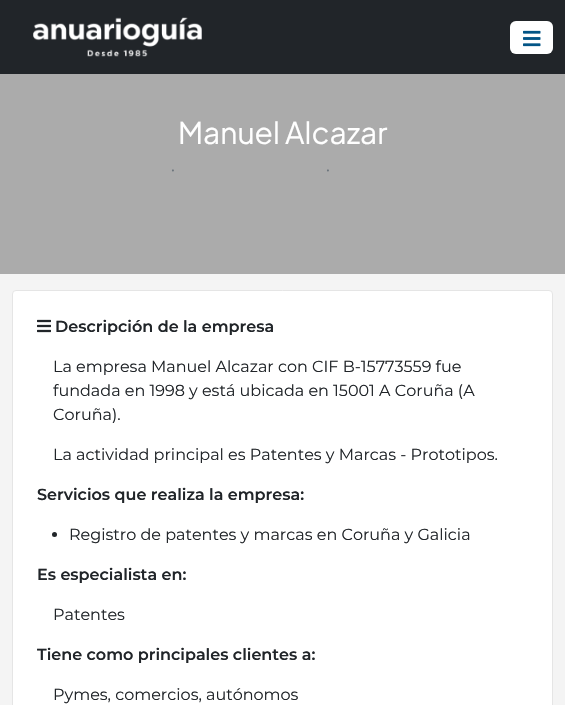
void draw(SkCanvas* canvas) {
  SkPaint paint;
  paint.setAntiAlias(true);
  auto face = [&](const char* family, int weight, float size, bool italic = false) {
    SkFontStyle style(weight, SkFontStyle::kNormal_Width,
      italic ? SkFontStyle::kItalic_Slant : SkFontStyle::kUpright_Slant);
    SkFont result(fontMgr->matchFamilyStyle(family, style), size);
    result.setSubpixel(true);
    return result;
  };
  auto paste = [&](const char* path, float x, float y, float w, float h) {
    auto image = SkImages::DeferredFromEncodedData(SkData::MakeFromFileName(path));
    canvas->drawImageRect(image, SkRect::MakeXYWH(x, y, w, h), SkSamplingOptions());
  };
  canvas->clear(0xffababab);
  paint.setColor(0xff212529);
  canvas->drawRect(SkRect::MakeXYWH(0, 0, 565, 74), paint);
  paste("img/1.png", 33, 17, 169, 40);
  paint.setColor(0xffffffff);
  canvas->drawRoundRect(SkRect::MakeXYWH(510, 21, 43, 33), 6, 6, paint);
  paint.setStroke(true);
  paint.setStrokeWidth(1);
  paint.setColor(0x1affffff);
  canvas->drawRoundRect(SkRect::MakeXYWH(510.5f, 21.5f, 42, 32), 5.5f, 5.5f, paint);
  paste("img/2.png", 523, 30, 18, 17);
  paint.setStroke(false);
  paint.setColor(0xfff4f4f4);
  canvas->drawRect(SkRect::MakeXYWH(0, 274, 565, 431), paint);
  paint.setColor(0xffffffff);
  canvas->drawRoundRect(SkRect::MakeXYWH(12.5f, 290.5f, 540, 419), 3.5f, 3.5f, paint);
  paint.setStroke(true);
  paint.setColor(0xffe5e5e5);
  canvas->drawRoundRect(SkRect::MakeXYWH(12.5f, 290.5f, 540, 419), 3.5f, 3.5f, paint);
  paste("img/3.png", 37, 319, 14, 14);
  paint.setStroke(false);
  paint.setColor(0xff212529);
  canvas->drawCircle(54.5f, 534.5f, 2.5f, paint);
  auto f0 = face("Plus Jakarta Sans", 400, 30);
  paint.setColor(0xffffffff);
  canvas->drawString("Manuel Alcazar", 178, 144, f0, paint);
  auto f1 = face("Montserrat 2", 100, 13);
  paint.setColor(0xff6c757d);
  canvas->drawString("•", 171, 174, f1, paint);
  canvas->drawString("•", 326, 174, f1, paint);
  auto f2 = face("Montserrat", 100, 16);
  paint.setColor(0xff212529);
  canvas->drawString("Descripción de la empresa", 55, 332, f2, paint);
  auto f3 = face("Montserrat 2", 100, 16);
  {
    const struct { const char* s; float x, y; } items[] = {
      {"La empresa Manuel Alcazar con CIF B-15773559 fue", 53, 372},
      {"fundada en 1998 y está ubicada en 15001 A Coruña (A", 53, 396},
      {"Coruña).", 53, 420},
      {"La actividad principal es Patentes y Marcas - Prototipos.", 53, 460},
    };
    for (auto [s, x, y] : items) {
      canvas->drawString(s, x, y, f3, paint);
    }
  }
  canvas->drawString("Servicios que realiza la empresa:", 37, 500, f2, paint);
  canvas->drawString("Registro de patentes y marcas en Coruña y Galicia", 69, 540, f3, paint);
  canvas->drawString("Es especialista en:", 37, 580, f2, paint);
  canvas->drawString("Patentes", 53, 620, f3, paint);
  canvas->drawString("Tiene como principales clientes a:", 37, 660, f2, paint);
  canvas->drawString("Pymes, comercios, autónomos", 53, 700, f3, paint);
}
